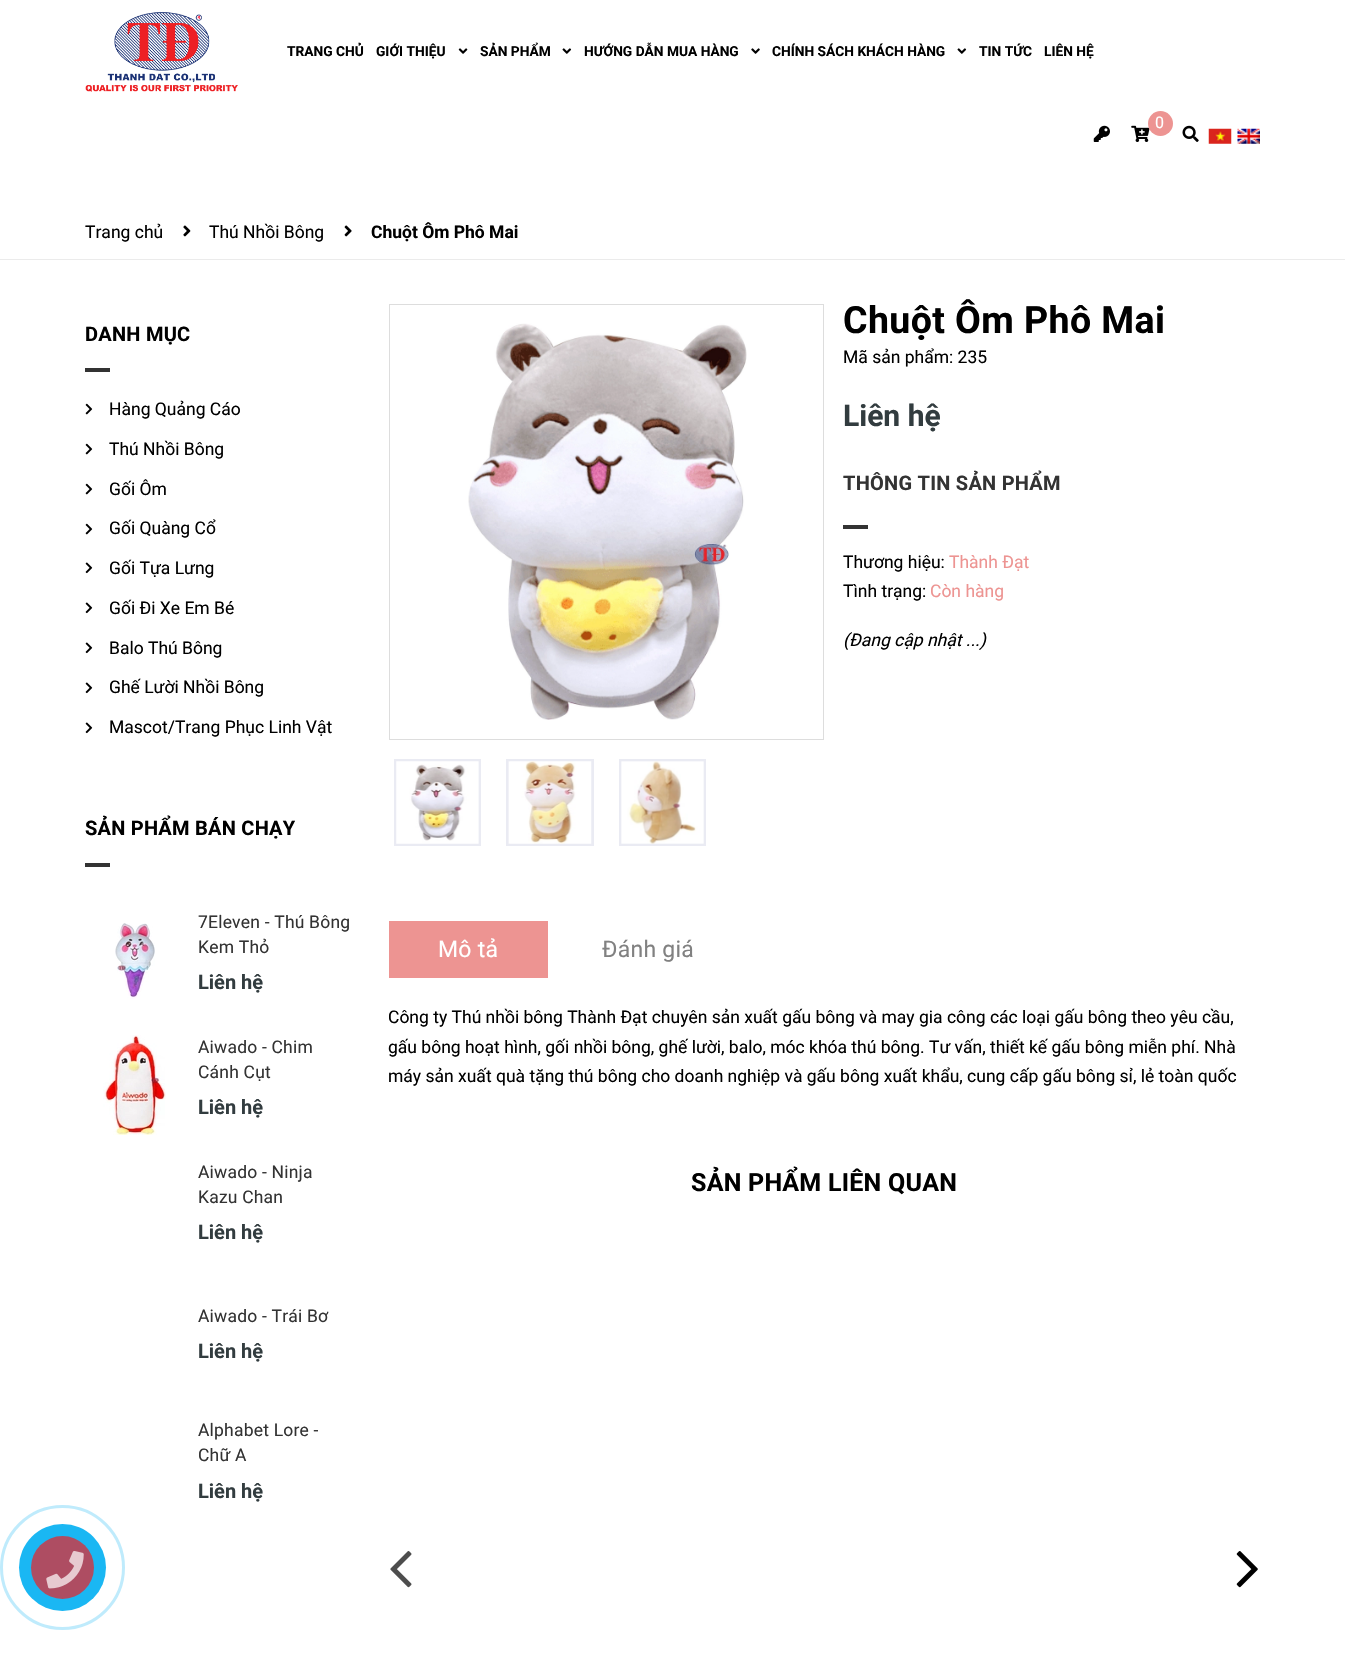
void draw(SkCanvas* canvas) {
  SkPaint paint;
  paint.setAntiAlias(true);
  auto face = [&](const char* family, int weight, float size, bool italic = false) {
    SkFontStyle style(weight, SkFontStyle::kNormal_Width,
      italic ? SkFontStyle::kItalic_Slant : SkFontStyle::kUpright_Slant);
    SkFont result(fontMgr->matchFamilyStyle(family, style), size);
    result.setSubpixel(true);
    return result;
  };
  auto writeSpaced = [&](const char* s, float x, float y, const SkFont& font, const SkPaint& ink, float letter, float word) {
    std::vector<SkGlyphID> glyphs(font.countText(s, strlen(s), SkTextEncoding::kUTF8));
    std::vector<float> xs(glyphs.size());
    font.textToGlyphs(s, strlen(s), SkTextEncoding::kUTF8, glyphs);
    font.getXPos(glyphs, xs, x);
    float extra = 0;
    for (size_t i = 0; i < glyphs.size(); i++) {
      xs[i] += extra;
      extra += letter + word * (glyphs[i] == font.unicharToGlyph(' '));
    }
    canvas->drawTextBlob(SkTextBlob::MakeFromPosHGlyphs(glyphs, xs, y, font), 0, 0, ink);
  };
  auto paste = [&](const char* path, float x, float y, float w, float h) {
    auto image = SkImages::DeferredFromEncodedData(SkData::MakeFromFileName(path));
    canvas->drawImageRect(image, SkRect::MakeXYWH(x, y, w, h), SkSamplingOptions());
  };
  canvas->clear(0xffffffff);
  paste("img/1.png", 85, 12, 153, 80);
  paste("img/2.png", 458, 48, 10, 6);
  paste("img/3.png", 562, 48, 10, 6);
  paste("img/4.png", 751, 48, 9, 6);
  paste("img/3.png", 957, 48, 10, 6);
  paste("img/5.png", 1131, 125, 19, 17);
  paint.setColor(0xffed9492);
  canvas->drawCircle(1160.5f, 123.5f, 12.5f, paint);
  paste("img/6.png", 1093, 125, 17, 17);
  paste("img/7.png", 1182, 125, 17, 17);
  paste("img/8.png", 1208, 128, 24, 16);
  paste("img/9.png", 1237, 128, 23, 16);
  paint.setColor(0xffebebeb);
  canvas->drawRect(SkRect::MakeXYWH(0, 259, 1345, 1), paint);
  paste("img/10.png", 183, 225, 8, 12);
  paste("img/11.png", 344, 225, 8, 12);
  paint.setColor(0xff333333);
  canvas->drawRect(SkRect::MakeXYWH(85, 368, 25, 4), paint);
  paste("img/12.png", 85, 403, 8, 12);
  paste("img/12.png", 85, 443, 8, 12);
  paste("img/12.png", 85, 483, 8, 12);
  paste("img/12.png", 85, 523, 8, 12);
  paste("img/13.png", 85, 562, 8, 12);
  paste("img/13.png", 85, 602, 8, 12);
  paste("img/13.png", 85, 642, 8, 12);
  paste("img/13.png", 85, 682, 8, 12);
  paste("img/13.png", 85, 722, 8, 12);
  canvas->drawRect(SkRect::MakeXYWH(85, 863, 25, 4), paint);
  paste("img/14.png", 115, 923, 40, 76);
  paste("img/15.png", 103, 1035, 63, 100);
  paint.setStroke(true);
  paint.setStrokeWidth(1);
  paint.setColor(0xffdddddd);
  canvas->drawRect(SkRect::MakeXYWH(389.5f, 304.5f, 434, 435), paint);
  paste("img/16.png", 468, 323, 279, 397);
  paint.setStrokeWidth(3);
  paint.setColor(0xffeaebf3);
  canvas->drawRect(SkRect::MakeXYWH(395.5f, 760.5f, 84, 84), paint);
  paste("img/17.png", 396, 761, 83, 83);
  canvas->drawRect(SkRect::MakeXYWH(507.5f, 760.5f, 85, 84), paint);
  paste("img/18.png", 508, 761, 84, 83);
  canvas->drawRect(SkRect::MakeXYWH(620.5f, 760.5f, 84, 84), paint);
  paste("img/19.png", 621, 761, 83, 83);
  paint.setStroke(false);
  paint.setColor(0xff333333);
  canvas->drawRect(SkRect::MakeXYWH(843, 525, 25, 4), paint);
  paint.setColor(0xffed9492);
  canvas->drawRect(SkRect::MakeXYWH(389, 921, 159, 57), paint);
  paste("img/20.png", 390, 1551, 22, 37);
  paste("img/21.png", 1236, 1551, 22, 37);
  paint.setStroke(true);
  paint.setColor(0xffbfebfc);
  canvas->drawCircle(62.5f, 1567.5f, 61, paint);
  paint.setStroke(false);
  paint.setColor(0xff1ab7f3);
  canvas->drawCircle(62.5f, 1567.5f, 43.5f, paint);
  paint.setColor(0xffae4d62);
  canvas->drawCircle(62.5f, 1567.5f, 31.5f, paint);
  paste("img/22.png", 46, 1551, 38, 38);
  auto f0 = face("Roboto", 700, 13.75f);
  paint.setColor(0xff000000);
  {
    const struct { const char* s; float x, y; } items[] = {
      {"TRANG CHỦ", 287, 56},
      {"GIỚI THIỆU", 376, 56},
      {"SẢN PHẨM", 480, 56},
      {"HƯỚNG DẪN MUA HÀNG", 584, 56},
      {"CHÍNH SÁCH KHÁCH HÀNG", 772, 56},
      {"TIN TỨC", 979, 56},
      {"LIÊN HỆ", 1044, 56},
    };
    for (auto [s, x, y] : items) {
      canvas->drawString(s, x, y, f0, paint);
    }
  }
  auto f1 = face("Roboto", 400, 16);
  paint.setColor(0xffffffff);
  canvas->drawString("0", 1155, 128, f1, paint);
  auto f2 = face("Roboto", 400, 17.5f);
  paint.setColor(0xff000000);
  canvas->drawString("Trang chủ", 85, 238, f2, paint);
  canvas->drawString("Thú Nhồi Bông", 209, 238, f2, paint);
  auto f3 = face("Roboto", 700, 17.5f);
  canvas->drawString("Chuột Ôm Phô Mai", 371, 238, f3, paint);
  auto f4 = face("Roboto", 700, 20);
  writeSpaced("DANH MỤC", 85, 341, f4, paint, 0.25f, 0);
  {
    const struct { const char* s; float x, y; } items[] = {
      {"Hàng Quảng Cáo", 109, 415},
      {"Thú Nhồi Bông", 109, 455},
      {"Gối Ôm", 109, 495},
      {"Gối Quàng Cổ", 109, 534},
      {"Gối Tựa Lưng", 109, 574},
      {"Gối Đi Xe Em Bé", 109, 614},
      {"Balo Thú Bông", 109, 654},
      {"Ghế Lười Nhồi Bông", 109, 693},
      {"Mascot/Trang Phục Linh Vật", 109, 733},
    };
    for (auto [s, x, y] : items) {
      canvas->drawString(s, x, y, f2, paint);
    }
  }
  writeSpaced("SẢN PHẨM BÁN CHẠY", 85, 835, f4, paint, 0.25f, 0);
  paint.setColor(0xff333333);
  writeSpaced("7Eleven - Thú Bông", 198, 928, f2, paint, 0.2f, 0);
  writeSpaced("Kem Thỏ", 198, 953, f2, paint, 0.2f, 0);
  paint.setColor(0xff323c3f);
  canvas->drawString("Liên hệ", 198, 989, f4, paint);
  paint.setColor(0xff333333);
  writeSpaced("Aiwado - Chim", 198, 1053, f2, paint, 0.2f, 0);
  writeSpaced("Cánh Cụt", 198, 1078, f2, paint, 0.2f, 0);
  paint.setColor(0xff323c3f);
  canvas->drawString("Liên hệ", 198, 1114, f4, paint);
  paint.setColor(0xff333333);
  writeSpaced("Aiwado - Ninja", 198, 1178, f2, paint, 0.2f, 0);
  writeSpaced("Kazu Chan", 198, 1203, f2, paint, 0.2f, 0);
  paint.setColor(0xff323c3f);
  canvas->drawString("Liên hệ", 198, 1239, f4, paint);
  paint.setColor(0xff333333);
  writeSpaced("Aiwado - Trái Bơ", 198, 1322, f2, paint, 0.2f, 0);
  paint.setColor(0xff323c3f);
  canvas->drawString("Liên hệ", 198, 1358, f4, paint);
  paint.setColor(0xff333333);
  writeSpaced("Alphabet Lore -", 198, 1436, f2, paint, 0.2f, 0);
  writeSpaced("Chữ A", 198, 1461, f2, paint, 0.2f, 0);
  paint.setColor(0xff323c3f);
  canvas->drawString("Liên hệ", 198, 1498, f4, paint);
  auto f5 = face("Roboto", 700, 37.5f);
  paint.setColor(0xff000000);
  writeSpaced("Chuột Ôm Phô Mai", 843, 333, f5, paint, 0.4f, 0);
  canvas->drawString("Mã sản phẩm: 235", 843, 363, f2, paint);
  auto f6 = face("Roboto", 700, 30);
  paint.setColor(0xff323c3f);
  canvas->drawString("Liên hệ", 843, 426, f6, paint);
  paint.setColor(0xff333333);
  writeSpaced("THÔNG TIN SẢN PHẨM", 843, 490, f4, paint, 0.25f, 0);
  paint.setColor(0xff000000);
  canvas->drawString("Thương hiệu:", 843, 568, f2, paint);
  paint.setColor(0xffed9492);
  canvas->drawString("Thành Đạt", 949, 568, f2, paint);
  paint.setColor(0xff000000);
  canvas->drawString("Tình trạng:", 843, 597, f2, paint);
  paint.setColor(0xffed9492);
  canvas->drawString("Còn hàng", 930, 597, f2, paint);
  auto f7 = face("Roboto", 400, 17.5f, true);
  paint.setColor(0xff000000);
  canvas->drawString("(Đang cập nhật ...)", 843, 646, f7, paint);
  auto f8 = face("Roboto", 400, 23);
  paint.setColor(0xffffffff);
  writeSpaced("Mô tả", 438, 957, f8, paint, 0.25f, 0);
  paint.setColor(0xff818181);
  writeSpaced("Đánh giá", 602, 957, f8, paint, 0.25f, 0);
  paint.setColor(0xff000000);
  {
    const struct { const char* s; float x, y; } items[] = {
      {"Công ty Thú nhồi bông Thành Đạt chuyên sản xuất gấu bông và may gia công các loại gấu bông theo yêu cầu,", 388, 1023},
      {"gấu bông hoạt hình, gối nhồi bông, ghế lười, balo, móc khóa thú bông. Tư vấn, thiết kế gấu bông miễn phí. Nhà", 388, 1053},
      {"máy sản xuất quà tặng thú bông cho doanh nghiệp và gấu bông xuất khẩu, cung cấp gấu bông sỉ, lẻ toàn quốc", 388, 1082},
    };
    for (auto [s, x, y] : items) {
      canvas->drawString(s, x, y, f2, paint);
    }
  }
  auto f9 = face("Roboto", 700, 25);
  writeSpaced("SẢN PHẨM LIÊN QUAN", 691, 1191, f9, paint, 0.25f, 0);
}
